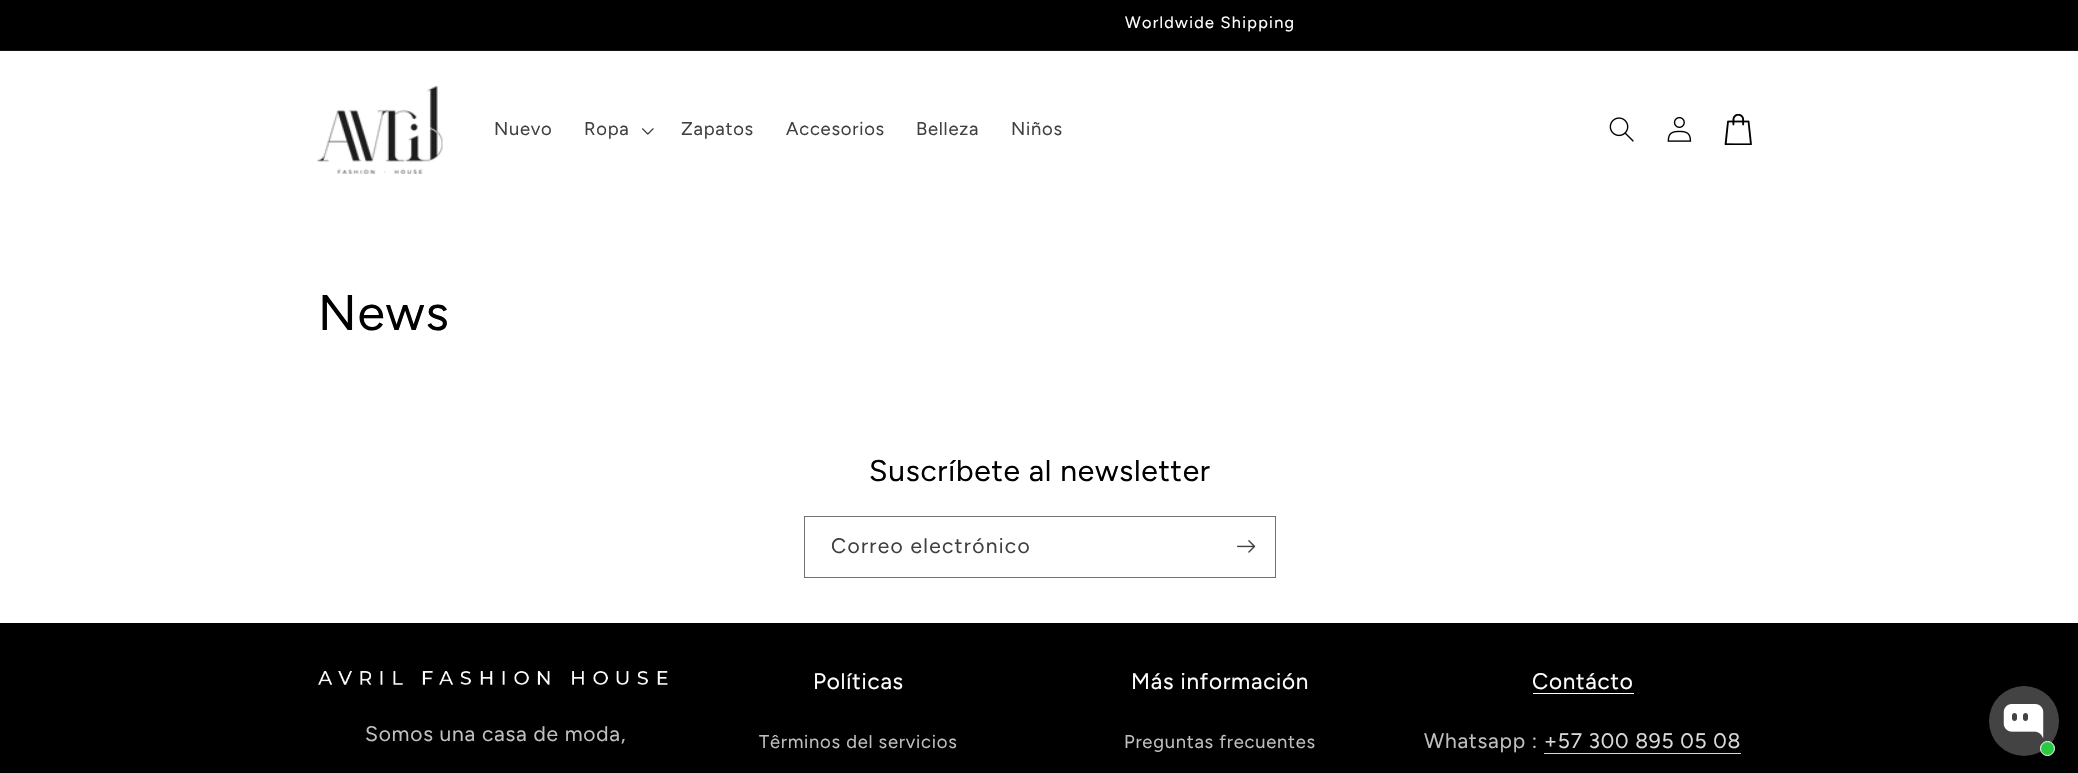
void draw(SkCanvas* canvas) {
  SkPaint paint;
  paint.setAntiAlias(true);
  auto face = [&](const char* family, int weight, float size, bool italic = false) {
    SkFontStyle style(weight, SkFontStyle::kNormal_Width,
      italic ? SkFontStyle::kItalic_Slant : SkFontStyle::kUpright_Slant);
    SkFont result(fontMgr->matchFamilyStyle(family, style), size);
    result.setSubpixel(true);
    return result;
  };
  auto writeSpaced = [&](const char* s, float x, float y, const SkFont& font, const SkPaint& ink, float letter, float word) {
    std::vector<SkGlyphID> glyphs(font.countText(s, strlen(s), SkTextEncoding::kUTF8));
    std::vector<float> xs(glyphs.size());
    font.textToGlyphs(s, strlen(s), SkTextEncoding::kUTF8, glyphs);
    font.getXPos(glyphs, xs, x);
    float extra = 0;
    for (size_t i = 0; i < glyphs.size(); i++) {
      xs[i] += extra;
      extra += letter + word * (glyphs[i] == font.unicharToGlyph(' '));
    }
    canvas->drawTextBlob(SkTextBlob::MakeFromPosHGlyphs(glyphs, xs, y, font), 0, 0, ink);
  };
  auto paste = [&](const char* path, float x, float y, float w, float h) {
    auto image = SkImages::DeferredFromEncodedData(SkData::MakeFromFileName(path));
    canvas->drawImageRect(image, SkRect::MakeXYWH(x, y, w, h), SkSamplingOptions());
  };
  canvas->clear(0xffffffff);
  paint.setColor(0xff000000);
  canvas->drawRect(SkRect::MakeXYWH(0, 0, 2078, 50), paint);
  paint.setColor(0xff141414);
  canvas->drawRect(SkRect::MakeXYWH(0, 50, 2078, 1), paint);
  paste("img/1.png", 317, 86, 126, 88);
  paste("img/2.png", 642, 128, 12, 7);
  paste("img/3.png", 1609, 117, 25, 25);
  paste("img/4.png", 1667, 116, 25, 26);
  paste("img/5.png", 1724, 114, 28, 31);
  paint.setStroke(true);
  paint.setStrokeWidth(1);
  paint.setColor(0xff737373);
  canvas->drawRect(SkRect::MakeXYWH(804.5f, 516.5f, 471, 61), paint);
  paste("img/6.png", 1237, 540, 18, 13);
  paint.setStroke(false);
  paint.setColor(0xff000000);
  canvas->drawRect(SkRect::MakeXYWH(0, 623, 2078, 150), paint);
  paste("img/7.png", 318, 671, 350, 14);
  paint.setColor(0xffffffff);
  canvas->drawRect(SkRect::MakeXYWH(1533, 693, 101, 1), paint);
  paint.setColor(0xffd9d9d9);
  canvas->drawRect(SkRect::MakeXYWH(1544, 753, 197, 1), paint);
  paint.setColor(0xff434343);
  canvas->drawCircle(2024, 721, 35, paint);
  paste("img/8.png", 2003, 704, 41, 34);
  paint.setColor(0xff27ca40);
  canvas->drawCircle(2047.5f, 748.5f, 7, paint);
  paint.setStroke(true);
  paint.setColor(0xffffffff);
  canvas->drawCircle(2047.5f, 748.5f, 7, paint);
  auto f0 = face("Figtree", 400, 16.25f);
  paint.setStroke(false);
  writeSpaced("Worldwide Shipping", 1125, 28, f0, paint, 1.3f, 0);
  auto f1 = face("Figtree", 400, 18.4f);
  paint.setColor(0xff404040);
  {
    const struct { const char* s; float x, y; } items[] = {
      {"Nuevo", 494, 135},
      {"Ropa", 584, 135},
      {"Zapatos", 681, 135},
      {"Accesorios", 786, 135},
      {"Belleza", 916, 135},
      {"Niños", 1011, 135},
    };
    for (auto [s, x, y] : items) {
      writeSpaced(s, x, y, f1, paint, 0.75f, 0);
    }
  }
  auto f2 = face("Figtree", 400, 50);
  paint.setColor(0xff000000);
  writeSpaced("News", 318, 330, f2, paint, 0.75f, 0);
  auto f3 = face("Figtree", 400, 30);
  writeSpaced("Suscríbete al newsletter", 869, 481, f3, paint, 0.75f, 0);
  auto f4 = face("Figtree", 400, 21);
  paint.setColor(0xff404040);
  writeSpaced("Correo electrónico", 831, 553, f4, paint, 1.3f, 0);
  paint.setColor(0xffbfbfbf);
  writeSpaced("Somos una casa de moda,", 365, 741, f4, paint, 0.75f, 0);
  auto f5 = face("Figtree", 400, 22.5f);
  paint.setColor(0xffffffff);
  writeSpaced("Políticas", 813, 689, f5, paint, 0.75f, 0);
  paint.setColor(0xffbfbfbf);
  writeSpaced("Têrminos del servicios", 759, 748, f1, paint, 0.75f, 0);
  paint.setColor(0xffffffff);
  writeSpaced("Más información", 1131, 689, f5, paint, 0.75f, 0);
  paint.setColor(0xffbfbfbf);
  writeSpaced("Preguntas frecuentes", 1124, 748, f1, paint, 0.75f, 0);
  paint.setColor(0xffffffff);
  writeSpaced("Contácto", 1532, 689, f5, paint, 0.75f, 0);
  paint.setColor(0xffbfbfbf);
  writeSpaced("Whatsapp :", 1424, 748, f4, paint, 0.75f, 0);
  paint.setColor(0xffd9d9d9);
  writeSpaced("+57 300 895 05 08", 1544, 748, f4, paint, 0.75f, 0);
}
